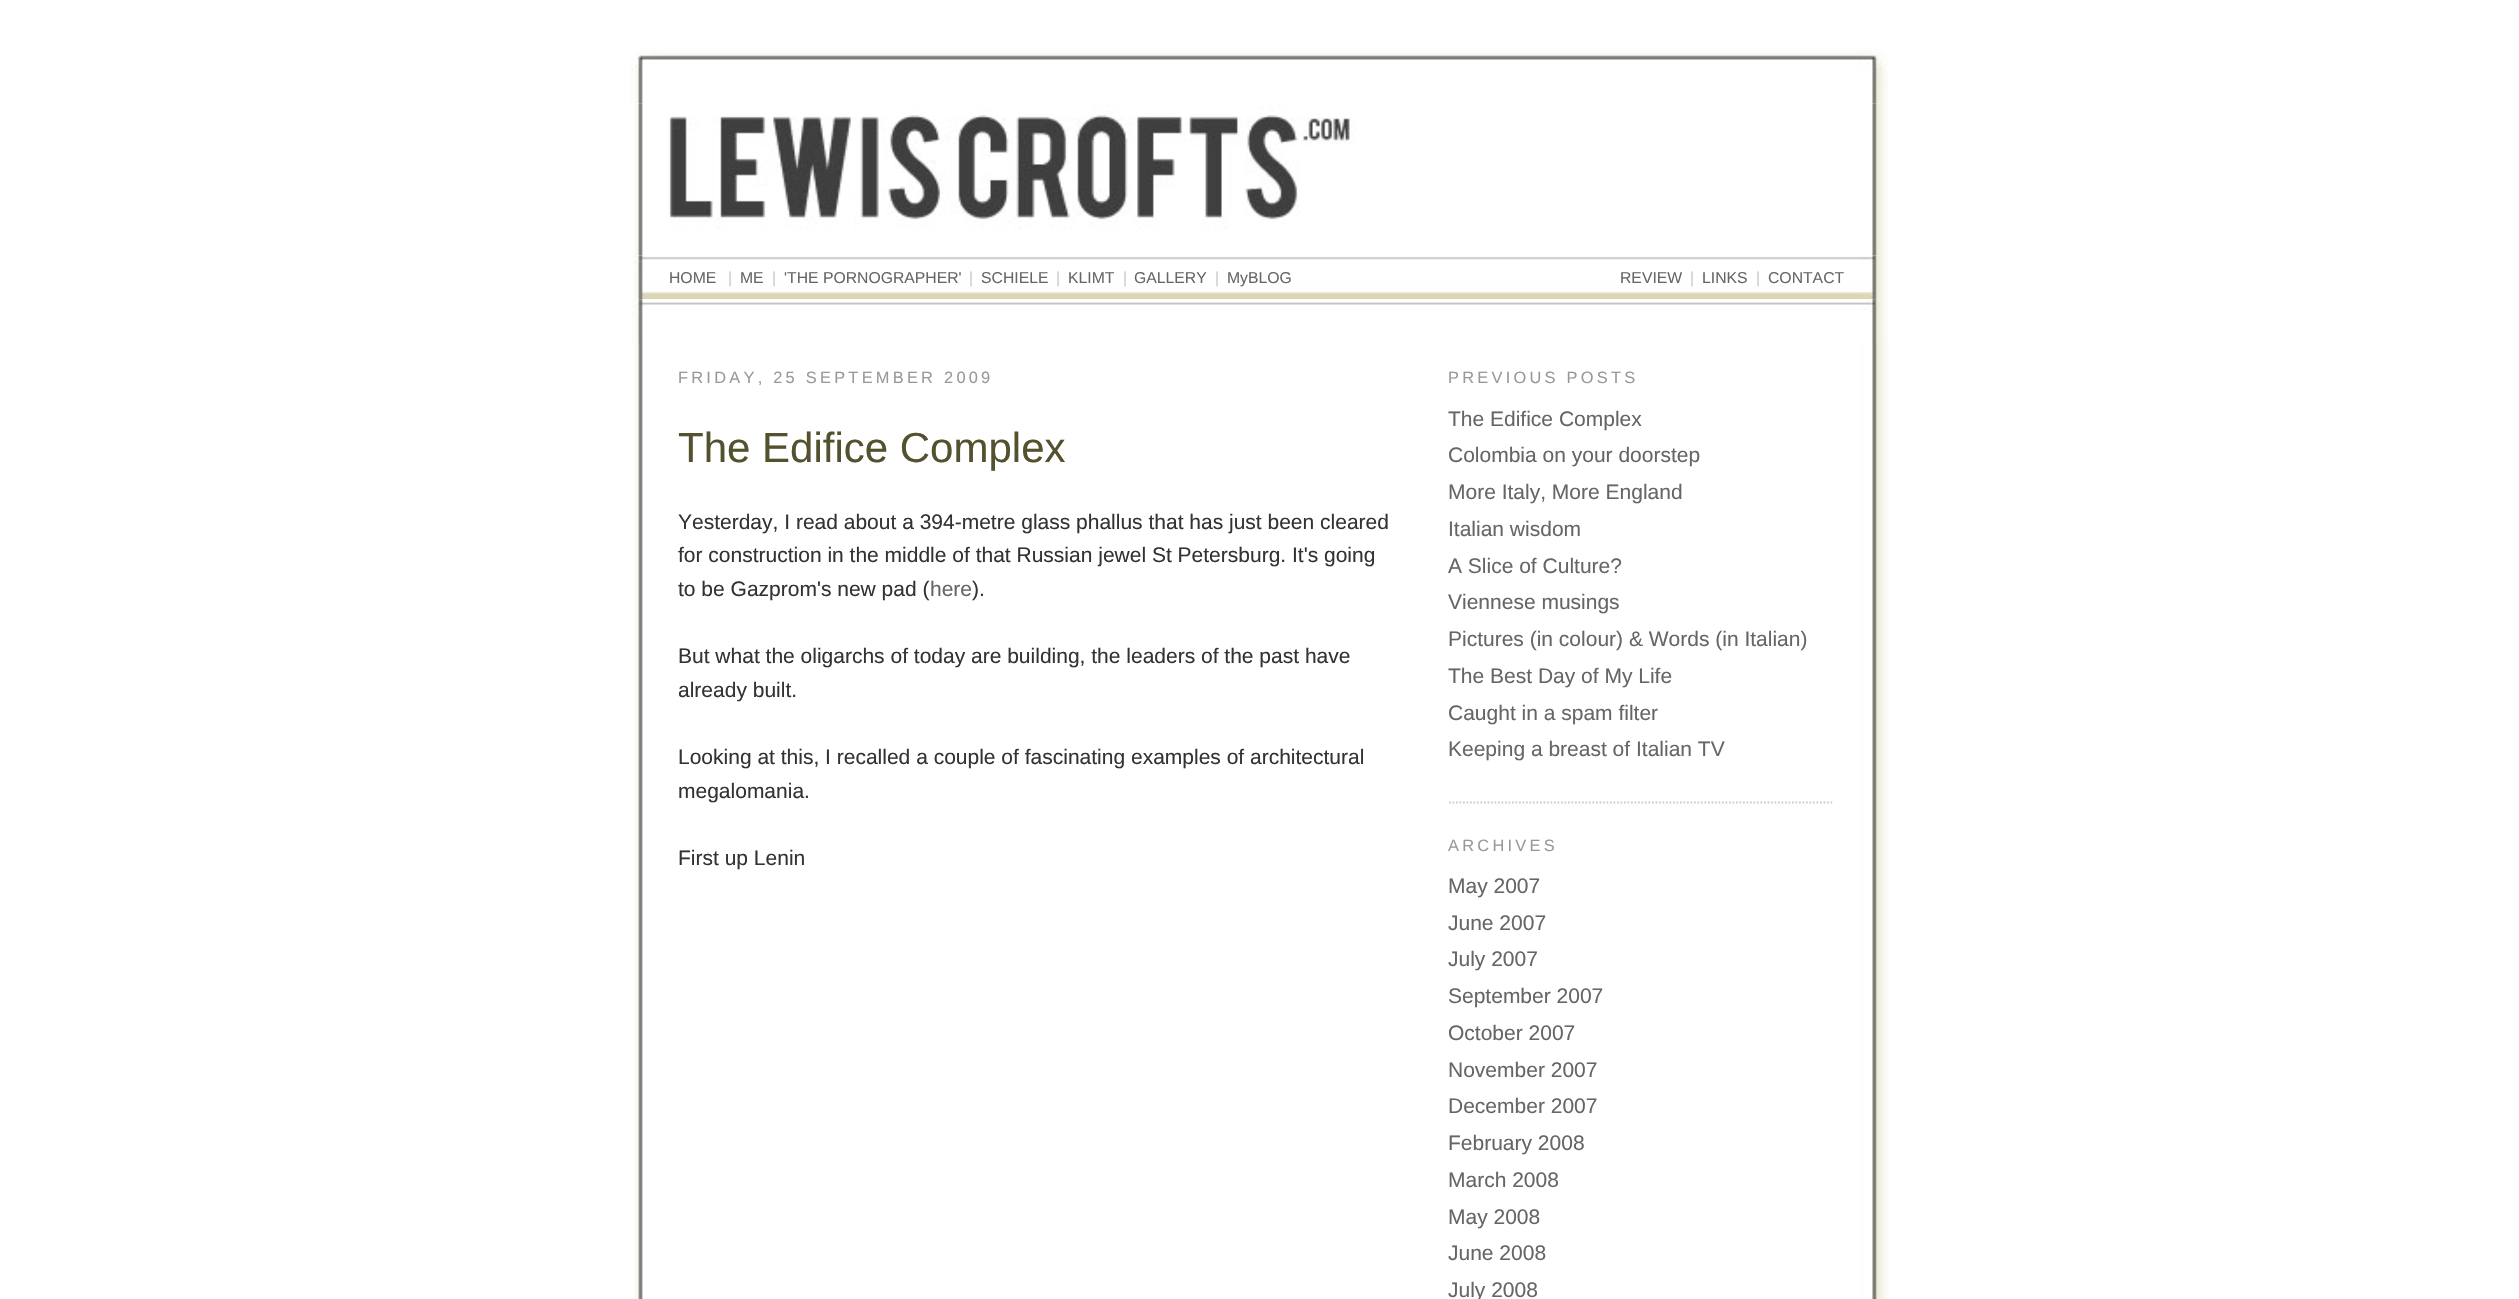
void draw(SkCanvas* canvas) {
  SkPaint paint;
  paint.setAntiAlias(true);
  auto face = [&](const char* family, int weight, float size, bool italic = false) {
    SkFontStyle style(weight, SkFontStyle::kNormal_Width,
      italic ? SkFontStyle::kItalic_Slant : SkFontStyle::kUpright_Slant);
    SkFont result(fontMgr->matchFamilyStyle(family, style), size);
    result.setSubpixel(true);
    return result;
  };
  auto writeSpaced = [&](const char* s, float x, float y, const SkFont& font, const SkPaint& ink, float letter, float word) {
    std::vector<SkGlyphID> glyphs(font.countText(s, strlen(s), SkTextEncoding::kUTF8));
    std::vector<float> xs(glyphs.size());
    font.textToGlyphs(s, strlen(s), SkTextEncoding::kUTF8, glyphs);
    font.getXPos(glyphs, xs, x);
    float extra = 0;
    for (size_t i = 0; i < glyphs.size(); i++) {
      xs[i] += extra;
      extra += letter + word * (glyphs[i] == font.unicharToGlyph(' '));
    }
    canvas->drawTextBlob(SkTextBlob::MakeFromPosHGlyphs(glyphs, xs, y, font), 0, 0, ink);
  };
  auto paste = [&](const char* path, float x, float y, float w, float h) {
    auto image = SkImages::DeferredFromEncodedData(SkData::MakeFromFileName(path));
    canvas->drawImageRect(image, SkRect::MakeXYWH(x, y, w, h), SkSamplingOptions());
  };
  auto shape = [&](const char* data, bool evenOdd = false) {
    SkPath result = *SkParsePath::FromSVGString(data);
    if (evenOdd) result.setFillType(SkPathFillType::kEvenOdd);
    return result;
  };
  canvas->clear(0xffffffff);
  paste("img/1.png", 630, 50, 1258, 54);
  paste("img/2.png", 634, 103, 1254, 153);
  paste("img/3.png", 633, 255, 1255, 45);
  paste("img/4.png", 632, 299, 1256, 44);
  paste("img/5.png", 634, 343, 1255, 956);
  paint.setStroke(true);
  paint.setStrokeWidth(1.8f);
  paint.setColor(0xffcccccc);
  paint.setPathEffect(SkDashPathEffect::Make({{1.75f, 1.75f}}, 0));
  canvas->drawPath(shape("M1449 802.5H1834"), paint);
  paint.setPathEffect(nullptr);
  auto f0 = face("Liberation Sans", 400, 15.75f);
  paint.setStroke(false);
  paint.setColor(0xff666666);
  canvas->drawString("HOME", 669, 283, f0, paint);
  paint.setColor(0xffcccccc);
  canvas->drawString("|", 728, 283, f0, paint);
  paint.setColor(0xff666666);
  canvas->drawString("ME", 740, 283, f0, paint);
  paint.setColor(0xffcccccc);
  canvas->drawString("|", 772, 283, f0, paint);
  paint.setColor(0xff666666);
  canvas->drawString("'THE PORNOGRAPHER'", 784, 283, f0, paint);
  paint.setColor(0xffcccccc);
  canvas->drawString("|", 969, 283, f0, paint);
  paint.setColor(0xff666666);
  canvas->drawString("SCHIELE", 981, 283, f0, paint);
  paint.setColor(0xffcccccc);
  canvas->drawString("|", 1056, 283, f0, paint);
  paint.setColor(0xff666666);
  canvas->drawString("KLIMT", 1068, 283, f0, paint);
  paint.setColor(0xffcccccc);
  canvas->drawString("|", 1123, 283, f0, paint);
  paint.setColor(0xff666666);
  canvas->drawString("GALLERY", 1134, 283, f0, paint);
  paint.setColor(0xffcccccc);
  canvas->drawString("|", 1215, 283, f0, paint);
  paint.setColor(0xff666666);
  canvas->drawString("MyBLOG", 1227, 283, f0, paint);
  canvas->drawString("REVIEW", 1620, 283, f0, paint);
  paint.setColor(0xffcccccc);
  canvas->drawString("|", 1690, 283, f0, paint);
  paint.setColor(0xff666666);
  canvas->drawString("LINKS", 1702, 283, f0, paint);
  paint.setColor(0xffcccccc);
  canvas->drawString("|", 1756, 283, f0, paint);
  paint.setColor(0xff666666);
  canvas->drawString("CONTACT", 1768, 283, f0, paint);
  auto f1 = face("Liberation Sans", 400, 16.4f);
  paint.setColor(0xff999999);
  writeSpaced("FRIDAY, 25 SEPTEMBER 2009", 678, 383, f1, paint, 3.25f, 0);
  auto f2 = face("Liberation Sans", 400, 42);
  paint.setColor(0xff54522e);
  canvas->drawString("The Edifice Complex", 678, 462, f2, paint);
  auto f3 = face("Liberation Sans", 400, 21);
  paint.setColor(0xff333333);
  {
    const struct { const char* s; float x, y; } items[] = {
      {"Yesterday, I read about a 394-metre glass phallus that has just been cleared", 678, 529},
      {"for construction in the middle of that Russian jewel St Petersburg. It's going", 678, 562},
      {"to be Gazprom's new pad (", 678, 596},
    };
    for (auto [s, x, y] : items) {
      canvas->drawString(s, x, y, f3, paint);
    }
  }
  paint.setColor(0xff666666);
  canvas->drawString("here", 930, 596, f3, paint);
  paint.setColor(0xff333333);
  {
    const struct { const char* s; float x, y; } items[] = {
      {").", 972, 596},
      {"But what the oligarchs of today are building, the leaders of the past have", 678, 663},
      {"already built.", 678, 697},
      {"Looking at this, I recalled a couple of fascinating examples of architectural", 678, 764},
      {"megalomania.", 678, 798},
      {"First up Lenin", 678, 865},
    };
    for (auto [s, x, y] : items) {
      canvas->drawString(s, x, y, f3, paint);
    }
  }
  paint.setColor(0xff999999);
  writeSpaced("PREVIOUS POSTS", 1448, 383, f1, paint, 3.25f, 0);
  paint.setColor(0xff666666);
  {
    const struct { const char* s; float x, y; } items[] = {
      {"The Edifice Complex", 1448, 426},
      {"Colombia on your doorstep", 1448, 462},
      {"More Italy, More England", 1448, 499},
      {"Italian wisdom", 1448, 536},
      {"A Slice of Culture?", 1448, 573},
      {"Viennese musings", 1448, 609},
      {"Pictures (in colour) & Words (in Italian)", 1448, 646},
      {"The Best Day of My Life", 1448, 683},
      {"Caught in a spam filter", 1448, 720},
      {"Keeping a breast of Italian TV", 1448, 756},
    };
    for (auto [s, x, y] : items) {
      canvas->drawString(s, x, y, f3, paint);
    }
  }
  paint.setColor(0xff999999);
  writeSpaced("ARCHIVES", 1448, 851, f1, paint, 3.25f, 0);
  paint.setColor(0xff666666);
  {
    const struct { const char* s; float x, y; } items[] = {
      {"May 2007", 1448, 893},
      {"June 2007", 1448, 930},
      {"July 2007", 1448, 966},
      {"September 2007", 1448, 1003},
      {"October 2007", 1448, 1040},
      {"November 2007", 1448, 1077},
      {"December 2007", 1448, 1113},
      {"February 2008", 1448, 1150},
      {"March 2008", 1448, 1187},
      {"May 2008", 1448, 1224},
      {"June 2008", 1448, 1260},
      {"July 2008", 1448, 1297},
    };
    for (auto [s, x, y] : items) {
      canvas->drawString(s, x, y, f3, paint);
    }
  }
}
